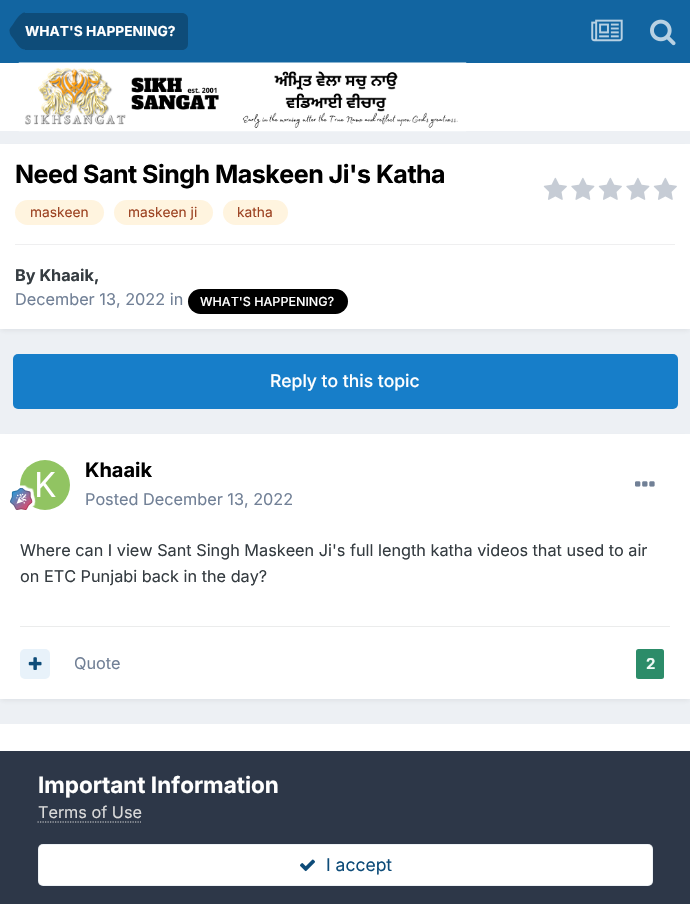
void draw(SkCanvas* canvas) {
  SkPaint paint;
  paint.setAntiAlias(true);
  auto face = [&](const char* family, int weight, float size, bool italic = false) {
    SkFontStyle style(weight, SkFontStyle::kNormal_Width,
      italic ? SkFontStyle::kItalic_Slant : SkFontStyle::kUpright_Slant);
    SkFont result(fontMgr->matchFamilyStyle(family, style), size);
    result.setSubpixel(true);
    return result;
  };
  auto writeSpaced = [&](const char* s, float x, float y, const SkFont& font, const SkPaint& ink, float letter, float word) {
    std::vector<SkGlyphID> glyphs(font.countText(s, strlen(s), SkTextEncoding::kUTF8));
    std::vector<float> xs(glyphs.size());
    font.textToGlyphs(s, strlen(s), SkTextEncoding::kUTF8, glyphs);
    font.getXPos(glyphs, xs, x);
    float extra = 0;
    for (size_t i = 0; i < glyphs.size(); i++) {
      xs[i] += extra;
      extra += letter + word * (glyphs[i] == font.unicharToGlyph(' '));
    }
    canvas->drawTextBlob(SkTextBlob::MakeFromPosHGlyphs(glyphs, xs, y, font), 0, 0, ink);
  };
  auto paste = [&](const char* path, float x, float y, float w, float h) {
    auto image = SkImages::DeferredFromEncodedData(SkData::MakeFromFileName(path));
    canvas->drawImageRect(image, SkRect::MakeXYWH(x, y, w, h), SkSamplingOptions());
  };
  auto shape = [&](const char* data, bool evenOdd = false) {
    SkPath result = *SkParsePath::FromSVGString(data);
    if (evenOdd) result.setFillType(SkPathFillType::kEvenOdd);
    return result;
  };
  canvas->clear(0xffedf0f4);
  paint.setColor(0xff1265a1);
  canvas->drawRect(SkRect::MakeXYWH(0, 0, 690, 63), paint);
  paint.setColor(0xff0e4c79);
  canvas->drawPath(shape("M25 13H182C185.5 13 188 15.5 188 19V44C188 47.5 185.5 50 182 50H25Z"), paint);
  canvas->drawPath(shape("M25 49.5C19.5 49.5 16.5 43 14 39.5C12 37 9.5 34.5 9.5 31H25ZM25 12.5V31H9.5C9 29 11.5 26.5 12.5 25C15.5 21 19.5 12.5 25 12.5Z"), paint);
  paste("img/1.png", 591, 19, 32, 23);
  paste("img/2.png", 650, 19, 26, 27);
  paint.setColor(0xffffffff);
  canvas->drawRect(SkRect::MakeXYWH(0, 63, 690, 68), paint);
  paste("img/3.png", 18, 62, 449, 70);
  paint.setColor(0x1a2d3748);
  paint.setMaskFilter(SkMaskFilter::MakeBlur(kNormal_SkBlurStyle, 2.5f));
  canvas->drawRect(SkRect::MakeXYWH(1, 148, 688, 182), paint);
  paint.setMaskFilter(nullptr);
  paint.setColor(0xffffffff);
  canvas->drawRect(SkRect::MakeXYWH(0, 144, 690, 185), paint);
  paint.setColor(0xfffff4df);
  canvas->drawRoundRect(SkRect::MakeXYWH(15, 200, 89, 25), 12.5f, 12.5f, paint);
  canvas->drawRoundRect(SkRect::MakeXYWH(114, 200, 99, 25), 12.5f, 12.5f, paint);
  canvas->drawRoundRect(SkRect::MakeXYWH(223, 200, 65, 25), 12.5f, 12.5f, paint);
  paste("img/4.png", 543, 177, 24, 23);
  paste("img/5.png", 571, 177, 24, 23);
  paste("img/4.png", 598, 177, 24, 23);
  paste("img/5.png", 626, 177, 24, 23);
  paste("img/4.png", 653, 177, 24, 23);
  paint.setColor(0xffefeff0);
  canvas->drawRect(SkRect::MakeXYWH(15, 244, 660, 1), paint);
  paint.setColor(0xff000000);
  canvas->drawRoundRect(SkRect::MakeXYWH(188, 289, 160, 25), 12.5f, 12.5f, paint);
  paint.setColor(0xff177ec9);
  canvas->drawRoundRect(SkRect::MakeXYWH(13, 354, 665, 55), 5, 5, paint);
  paint.setColor(0x1a2d3748);
  paint.setMaskFilter(SkMaskFilter::MakeBlur(kNormal_SkBlurStyle, 2.5f));
  canvas->drawRect(SkRect::MakeXYWH(1, 438, 688, 262), paint);
  paint.setMaskFilter(nullptr);
  paint.setColor(0xffffffff);
  canvas->drawRect(SkRect::MakeXYWH(0, 434, 690, 265), paint);
  paste("img/6.png", 20, 460, 50, 50);
  paste("img/7.png", 10, 485, 26, 25);
  paste("img/8.png", 635, 481, 20, 6);
  paint.setColor(0xffebecec);
  canvas->drawRect(SkRect::MakeXYWH(20, 626, 650, 1), paint);
  paint.setColor(0xffe8f2fa);
  canvas->drawRoundRect(SkRect::MakeXYWH(20, 649, 30, 30), 5, 5, paint);
  paste("img/9.png", 28, 657, 14, 13);
  paint.setColor(0xff2c8c69);
  canvas->drawRoundRect(SkRect::MakeXYWH(636, 649, 28, 30), 2.5f, 2.5f, paint);
  paint.setColor(0xffffffff);
  canvas->drawRect(SkRect::MakeXYWH(0, 724, 690, 27), paint);
  paint.setColor(0xff2d3748);
  canvas->drawRect(SkRect::MakeXYWH(0, 751, 690, 153), paint);
  paint.setStroke(true);
  paint.setStrokeWidth(1.2f);
  paint.setColor(0xffdadada);
  paint.setPathEffect(SkDashPathEffect::Make({{1.25f, 1.25f}}, 0));
  canvas->drawPath(shape("M37.5 822H141"), paint);
  paint.setPathEffect(nullptr);
  paint.setStroke(false);
  paint.setColor(0xffffffff);
  canvas->drawRoundRect(SkRect::MakeXYWH(38, 844, 615, 42), 5, 5, paint);
  paint.setStroke(true);
  paint.setStrokeWidth(1);
  paint.setColor(0x120e4c79);
  canvas->drawRoundRect(SkRect::MakeXYWH(38.5f, 844.5f, 614, 41), 4.5f, 4.5f, paint);
  paste("img/10.png", 300, 859, 15, 13);
  auto f0 = face("Inter", 700, 13.75f);
  paint.setStroke(false);
  paint.setColor(0xffffffff);
  canvas->drawString("WHAT'S HAPPENING?", 25, 36, f0, paint);
  auto f1 = face("Inter", 700, 25);
  paint.setColor(0xff000000);
  writeSpaced("Need Sant Singh Maskeen Ji's Katha", 15, 183, f1, paint, -0.5f, 0);
  auto f2 = face("Inter", 400, 13.75f);
  paint.setColor(0xff9c4221);
  {
    const struct { const char* s; float x, y; } items[] = {
      {"maskeen", 30, 217},
      {"maskeen ji", 128, 217},
      {"katha", 237, 217},
    };
    for (auto [s, x, y] : items) {
      canvas->drawString(s, x, y, f2, paint);
    }
  }
  auto f3 = face("Inter", 700, 16.25f);
  paint.setColor(0xff353c41);
  canvas->drawString("By Khaaik,", 15, 281, f3, paint);
  auto f4 = face("Inter", 400, 16.25f);
  paint.setColor(0xff718096);
  canvas->drawString("December 13, 2022 in", 15, 305, f4, paint);
  auto f5 = face("Inter", 500, 12.5f);
  paint.setColor(0xffffffff);
  canvas->drawString("WHAT'S HAPPENING?", 200, 306, f5, paint);
  auto f6 = face("Inter", 500, 17.5f);
  canvas->drawString("Reply to this topic", 270, 387, f6, paint);
  auto f7 = face("Inter", 700, 20);
  paint.setColor(0xff000000);
  canvas->drawString("Khaaik", 85, 477, f7, paint);
  paint.setColor(0xff718096);
  canvas->drawString("Posted December 13, 2022", 85, 505, f4, paint);
  paint.setColor(0xff353c41);
  canvas->drawString("Where can I view Sant Singh Maskeen Ji's full length katha videos that used to air", 20, 556, f4, paint);
  canvas->drawString("on ETC Punjabi back in the day?", 20, 582, f4, paint);
  paint.setColor(0xff718096);
  canvas->drawString("Quote", 74, 669, f4, paint);
  auto f8 = face("Inter", 700, 15);
  paint.setColor(0xfff0faf6);
  canvas->drawString("2", 646, 669, f8, paint);
  auto f9 = face("Inter", 700, 22.5f);
  paint.setColor(0xffffffff);
  canvas->drawString("Important Information", 38, 793, f9, paint);
  paint.setColor(0xffdadada);
  canvas->drawString("Terms of Use", 38, 818, f4, paint);
  auto f10 = face("Inter", 400, 17.5f);
  paint.setColor(0xff0e4c79);
  canvas->drawString("I accept", 326, 871, f10, paint);
}
